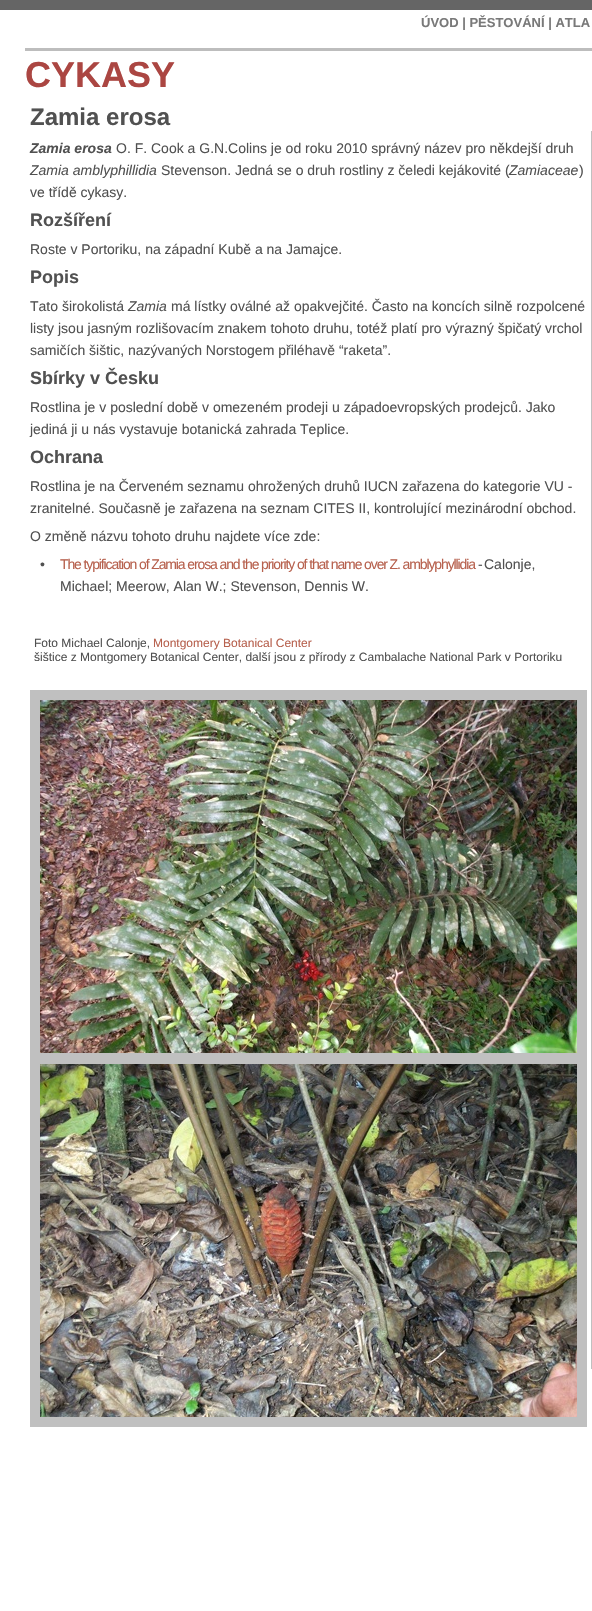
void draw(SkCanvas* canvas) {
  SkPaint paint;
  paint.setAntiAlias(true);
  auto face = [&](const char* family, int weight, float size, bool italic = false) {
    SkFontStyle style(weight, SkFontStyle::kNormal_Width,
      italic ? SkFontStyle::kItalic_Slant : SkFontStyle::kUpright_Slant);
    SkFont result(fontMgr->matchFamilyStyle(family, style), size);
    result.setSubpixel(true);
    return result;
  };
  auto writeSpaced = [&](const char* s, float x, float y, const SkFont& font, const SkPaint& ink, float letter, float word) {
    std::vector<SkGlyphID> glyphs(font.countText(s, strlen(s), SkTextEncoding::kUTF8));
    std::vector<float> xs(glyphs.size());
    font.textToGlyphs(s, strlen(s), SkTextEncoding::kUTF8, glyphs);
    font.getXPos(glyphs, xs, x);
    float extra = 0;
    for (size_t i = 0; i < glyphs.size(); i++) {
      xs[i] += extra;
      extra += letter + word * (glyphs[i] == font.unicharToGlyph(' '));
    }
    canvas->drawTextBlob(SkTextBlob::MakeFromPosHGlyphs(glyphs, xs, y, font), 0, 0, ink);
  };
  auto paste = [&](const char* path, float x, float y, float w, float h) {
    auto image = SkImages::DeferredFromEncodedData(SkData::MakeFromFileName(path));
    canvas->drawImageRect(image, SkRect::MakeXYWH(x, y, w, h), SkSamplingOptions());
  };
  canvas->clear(0xff656565);
  {
    const struct { float x, y, w, h; SkColor color; } items[] = {
      {0, 10, 592, 1601, 0xffffffff},
      {25, 48, 567, 3, 0xffbdbdbd},
      {591, 131, 1, 1238, 0xffc0c0c0},
      {30, 690, 10, 363, 0xffc0c0c0},
      {40, 690, 547, 10, 0xffc0c0c0},
    };
    for (auto [x, y, w, h, color] : items) {
      paint.setColor(color);
      canvas->drawRect(SkRect::MakeXYWH(x, y, w, h), paint);
    }
  }
  paste("img/1.png", 40, 700, 537, 353);
  {
    const struct { float x, y, w, h; SkColor color; } items[] = {
      {577, 700, 10, 359, 0xffc0c0c0},
      {30, 1053, 547, 6, 0xffc0c0c0},
      {30, 1059, 10, 358, 0xffc0c0c0},
      {40, 1059, 547, 5, 0xffc0c0c0},
    };
    for (auto [x, y, w, h, color] : items) {
      paint.setColor(color);
      canvas->drawRect(SkRect::MakeXYWH(x, y, w, h), paint);
    }
  }
  paste("img/2.png", 40, 1064, 537, 353);
  canvas->drawRect(SkRect::MakeXYWH(577, 1064, 10, 363), paint);
  canvas->drawRect(SkRect::MakeXYWH(30, 1417, 547, 10), paint);
  auto f0 = face("Liberation Sans", 700, 13);
  paint.setColor(0xff797979);
  canvas->drawString("ÚVOD | PĚSTOVÁNÍ | ATLA", 421, 27, f0, paint);
  auto f1 = face("Liberation Sans", 700, 36);
  paint.setColor(0xffab4642);
  canvas->drawString("CYKASY", 25, 87, f1, paint);
  auto f2 = face("Liberation Sans", 700, 24);
  paint.setColor(0xff515151);
  canvas->drawString("Zamia erosa", 30, 125, f2, paint);
  auto f3 = face("Liberation Sans", 700, 14, true);
  canvas->drawString("Zamia erosa", 30, 153, f3, paint);
  auto f4 = face("Liberation Sans", 400, 14);
  canvas->drawString("O. F. Cook a G.N.Colins je od roku 2010 správný název pro někdejší druh", 116, 153, f4, paint);
  auto f5 = face("Liberation Sans", 400, 14, true);
  canvas->drawString("Zamia amblyphillidia", 30, 175, f5, paint);
  canvas->drawString("Stevenson. Jedná se o druh rostliny z čeledi kejákovité (", 161, 175, f4, paint);
  canvas->drawString("Zamiaceae", 509, 175, f5, paint);
  canvas->drawString(")", 579, 175, f4, paint);
  canvas->drawString("ve třídě cykasy.", 30, 197, f4, paint);
  auto f6 = face("Liberation Sans", 700, 18);
  canvas->drawString("Rozšíření", 30, 226, f6, paint);
  canvas->drawString("Roste v Portoriku, na západní Kubě a na Jamajce.", 30, 254, f4, paint);
  canvas->drawString("Popis", 30, 283, f6, paint);
  canvas->drawString("Tato širokolistá", 30, 311, f4, paint);
  canvas->drawString("Zamia", 128, 311, f5, paint);
  {
    const struct { const char* s; float x, y; } items[] = {
      {"má lístky oválné až opakvejčité. Často na koncích silně rozpolcené", 171, 311},
      {"listy jsou jasným rozlišovacím znakem tohoto druhu, totéž platí pro výrazný špičatý vrchol", 30, 333},
      {"samičích šištic, nazývaných Norstogem přiléhavě “raketa”.", 30, 355},
    };
    for (auto [s, x, y] : items) {
      canvas->drawString(s, x, y, f4, paint);
    }
  }
  canvas->drawString("Sbírky v Česku", 30, 384, f6, paint);
  canvas->drawString("Rostlina je v poslední době v omezeném prodeji u západoevropských prodejců. Jako", 30, 412, f4, paint);
  canvas->drawString("jediná ji u nás vystavuje botanická zahrada Teplice.", 30, 434, f4, paint);
  canvas->drawString("Ochrana", 30, 463, f6, paint);
  {
    const struct { const char* s; float x, y; } items[] = {
      {"Rostlina je na Červeném seznamu ohrožených druhů IUCN zařazena do kategorie VU -", 30, 491},
      {"zranitelné. Současně je zařazena na seznam CITES II, kontrolující mezinárodní obchod.", 30, 513},
      {"O změně názvu tohoto druhu najdete více zde:", 30, 541},
      {"•", 40, 569},
    };
    for (auto [s, x, y] : items) {
      canvas->drawString(s, x, y, f4, paint);
    }
  }
  paint.setColor(0xffb7614e);
  writeSpaced("The typification of Zamia erosa and the priority of that name over Z. amblyphyllidia", 60, 569, f4, paint, -1.12f, 0);
  paint.setColor(0xff515151);
  writeSpaced("-", 478, 569, f4, paint, -1.12f, 0);
  canvas->drawString("Calonje,", 484, 569, f4, paint);
  canvas->drawString("Michael; Meerow, Alan W.; Stevenson, Dennis W.", 60, 591, f4, paint);
  auto f7 = face("Liberation Sans", 400, 12);
  canvas->drawString("Foto Michael Calonje,", 34, 647, f7, paint);
  paint.setColor(0xffb7614e);
  canvas->drawString("Montgomery Botanical Center", 153, 647, f7, paint);
  paint.setColor(0xff515151);
  canvas->drawString("šištice z Montgomery Botanical Center, další jsou z přírody z Cambalache National Park v Portoriku", 34, 661, f7, paint);
}
